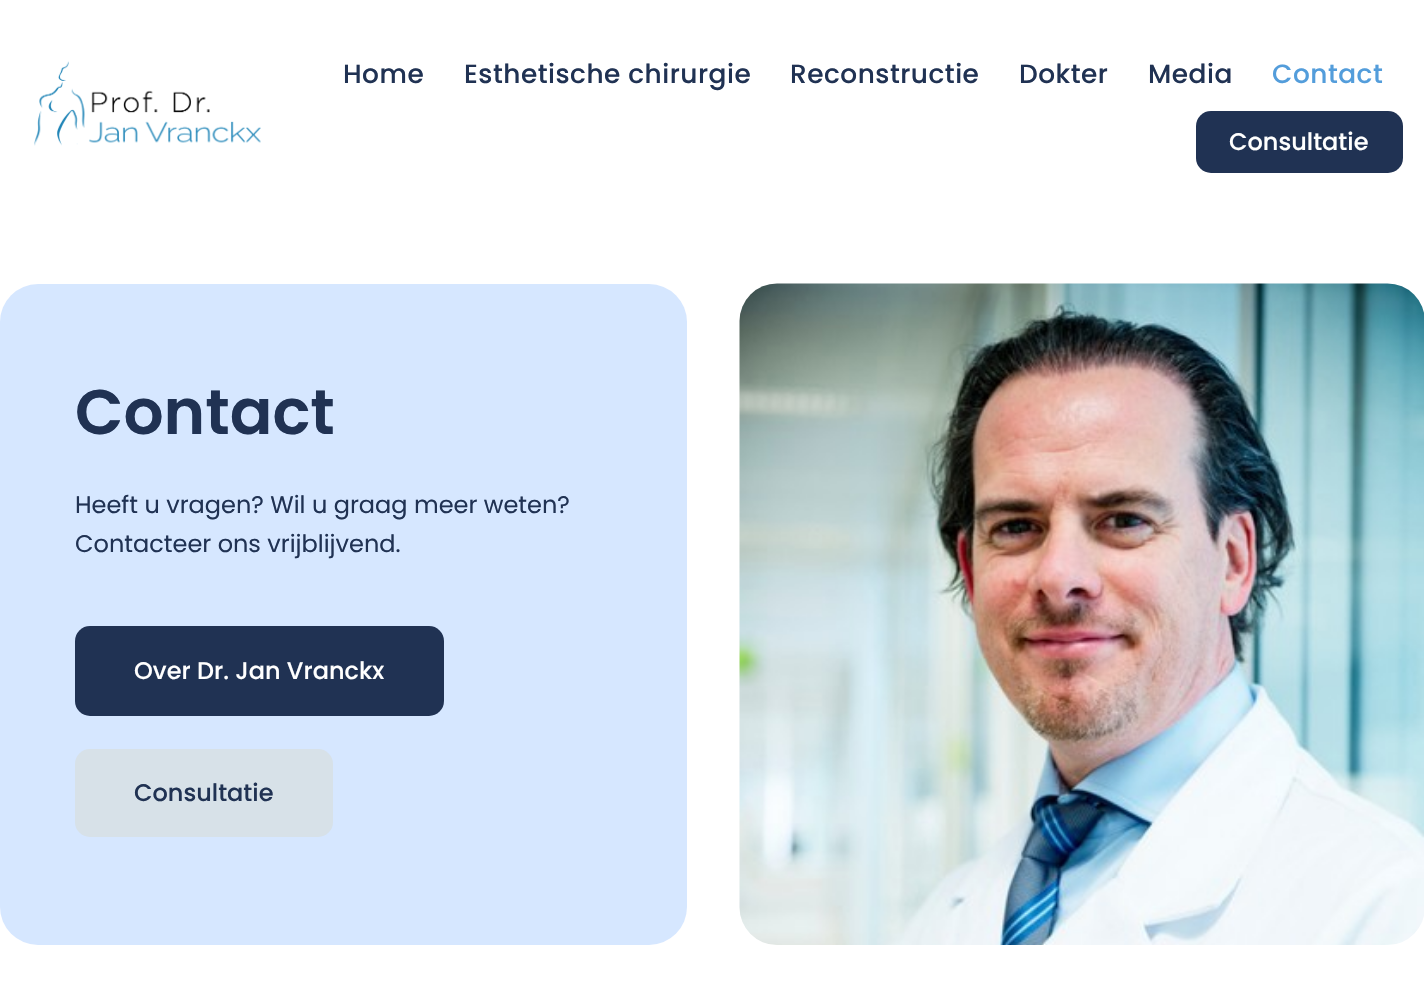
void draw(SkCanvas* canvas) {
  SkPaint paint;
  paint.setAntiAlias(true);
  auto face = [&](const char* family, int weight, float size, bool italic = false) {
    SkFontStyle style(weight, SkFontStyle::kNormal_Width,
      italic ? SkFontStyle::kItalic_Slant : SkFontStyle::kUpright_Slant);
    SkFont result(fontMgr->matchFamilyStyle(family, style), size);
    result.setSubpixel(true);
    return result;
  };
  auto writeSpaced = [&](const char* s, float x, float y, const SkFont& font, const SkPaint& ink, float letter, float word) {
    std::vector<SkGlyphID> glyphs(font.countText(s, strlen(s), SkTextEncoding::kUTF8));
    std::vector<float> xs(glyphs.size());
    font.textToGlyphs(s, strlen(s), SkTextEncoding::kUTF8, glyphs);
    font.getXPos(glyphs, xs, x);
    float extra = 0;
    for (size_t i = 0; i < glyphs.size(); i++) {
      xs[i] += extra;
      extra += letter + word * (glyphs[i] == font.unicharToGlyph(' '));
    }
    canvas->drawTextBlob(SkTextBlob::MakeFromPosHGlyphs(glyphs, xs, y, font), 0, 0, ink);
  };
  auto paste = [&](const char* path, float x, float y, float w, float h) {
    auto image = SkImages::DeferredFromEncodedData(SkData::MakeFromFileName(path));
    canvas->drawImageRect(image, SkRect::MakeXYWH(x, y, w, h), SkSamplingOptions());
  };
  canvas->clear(0xffffffff);
  paste("img/1.png", 34, 61, 227, 85);
  paint.setColor(0xff203253);
  canvas->drawRoundRect(SkRect::MakeXYWH(1196, 111, 207, 62), 15, 15, paint);
  paint.setColor(0xffd6e7ff);
  canvas->drawRoundRect(SkRect::MakeXYWH(0, 284, 687, 661), 38, 38, paint);
  paint.setColor(0xff203253);
  canvas->drawRoundRect(SkRect::MakeXYWH(75, 626, 369, 90), 15, 15, paint);
  paint.setColor(0xffd7e1e8);
  canvas->drawRoundRect(SkRect::MakeXYWH(75, 749, 258, 88), 15, 15, paint);
  paste("img/2.png", 739, 283, 685, 662);
  auto f0 = face("Poppins", 500, 26.4f);
  paint.setColor(0xff203253);
  {
    const struct { const char* s; float x, y; } items[] = {
      {"Home", 343, 83},
      {"Esthetische chirurgie", 464, 83},
      {"Reconstructie", 790, 83},
      {"Dokter", 1019, 83},
      {"Media", 1148, 83},
    };
    for (auto [s, x, y] : items) {
      writeSpaced(s, x, y, f0, paint, 0.5f, 0);
    }
  }
  paint.setColor(0xff539ddb);
  writeSpaced("Contact", 1272, 83, f0, paint, 0.5f, 0);
  auto f1 = face("Poppins", 500, 24);
  paint.setColor(0xffffffff);
  canvas->drawString("Consultatie", 1229, 150, f1, paint);
  auto f2 = face("Poppins", 600, 63);
  paint.setColor(0xff203253);
  canvas->drawString("Contact", 75, 434, f2, paint);
  auto f3 = face("Poppins", 400, 24);
  canvas->drawString("Heeft u vragen? Wil u graag meer weten?", 75, 513, f3, paint);
  canvas->drawString("Contacteer ons vrijblijvend.", 75, 552, f3, paint);
  paint.setColor(0xffffffff);
  canvas->drawString("Over Dr. Jan Vranckx", 134, 679, f1, paint);
  paint.setColor(0xff203253);
  canvas->drawString("Consultatie", 134, 801, f1, paint);
}
